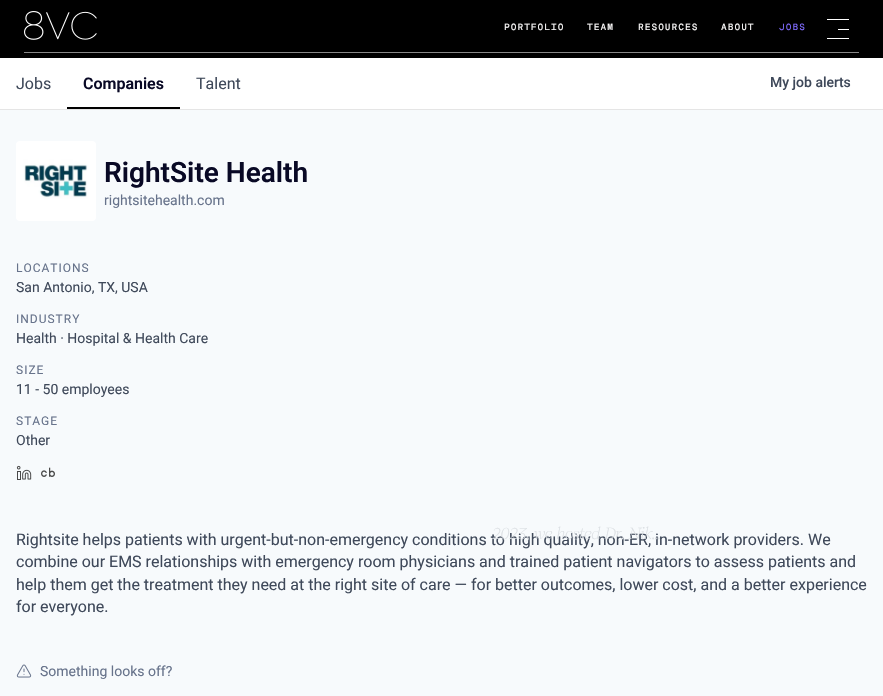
void draw(SkCanvas* canvas) {
  SkPaint paint;
  paint.setAntiAlias(true);
  auto face = [&](const char* family, int weight, float size, bool italic = false) {
    SkFontStyle style(weight, SkFontStyle::kNormal_Width,
      italic ? SkFontStyle::kItalic_Slant : SkFontStyle::kUpright_Slant);
    SkFont result(fontMgr->matchFamilyStyle(family, style), size);
    result.setSubpixel(true);
    return result;
  };
  auto writeSpaced = [&](const char* s, float x, float y, const SkFont& font, const SkPaint& ink, float letter, float word) {
    std::vector<SkGlyphID> glyphs(font.countText(s, strlen(s), SkTextEncoding::kUTF8));
    std::vector<float> xs(glyphs.size());
    font.textToGlyphs(s, strlen(s), SkTextEncoding::kUTF8, glyphs);
    font.getXPos(glyphs, xs, x);
    float extra = 0;
    for (size_t i = 0; i < glyphs.size(); i++) {
      xs[i] += extra;
      extra += letter + word * (glyphs[i] == font.unicharToGlyph(' '));
    }
    canvas->drawTextBlob(SkTextBlob::MakeFromPosHGlyphs(glyphs, xs, y, font), 0, 0, ink);
  };
  auto paste = [&](const char* path, float x, float y, float w, float h) {
    auto image = SkImages::DeferredFromEncodedData(SkData::MakeFromFileName(path));
    canvas->drawImageRect(image, SkRect::MakeXYWH(x, y, w, h), SkSamplingOptions());
  };
  canvas->clear(0xfff7fafc);
  paint.setColor(0xff000000);
  canvas->drawRect(SkRect::MakeXYWH(0, 0, 883, 58), paint);
  paste("img/1.png", 24, 11, 73, 29);
  {
    const struct { float x, y, w, h; SkColor color; } items[] = {
      {24, 52, 835, 1, 0xff878787},
      {827, 19, 22, 1, 0xffffffff},
      {838, 29, 11, 1, 0xffffffff},
      {827, 38, 22, 1, 0xffffffff},
      {0, 109, 883, 1, 0xffe5e5e5},
      {0, 58, 883, 51, 0xffffffff},
      {67, 107, 113, 2, 0xff000000},
    };
    for (auto [x, y, w, h, color] : items) {
      paint.setColor(color);
      canvas->drawRect(SkRect::MakeXYWH(x, y, w, h), paint);
    }
  }
  paste("img/2.png", 16, 141, 80, 80);
  paste("img/3.png", 16, 465, 16, 15);
  paste("img/4.png", 41, 467, 14, 10);
  paste("img/5.png", 16, 664, 16, 14);
  auto f0 = face("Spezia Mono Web", 500, 9);
  paint.setColor(0xfffcfbfb);
  {
    const struct { const char* s; float x, y; } items[] = {
      {"PORTFOLIO", 504, 30},
      {"TEAM", 587, 30},
      {"RESOURCES", 638, 30},
      {"ABOUT", 721, 30},
    };
    for (auto [s, x, y] : items) {
      writeSpaced(s, x, y, f0, paint, 1, 0);
    }
  }
  paint.setColor(0xff806bff);
  writeSpaced("JOBS", 779, 30, f0, paint, 1, 0);
  auto f1 = face("Roboto", 400, 16);
  paint.setColor(0xff3f495a);
  canvas->drawString("Jobs", 16, 89, f1, paint);
  auto f2 = face("Roboto", 600, 16);
  paint.setColor(0xff090925);
  canvas->drawString("Companies", 83, 89, f2, paint);
  paint.setColor(0xff3f495a);
  canvas->drawString("Talent", 196, 89, f1, paint);
  auto f3 = face("Roboto", 500, 14);
  canvas->drawString("My job alerts", 770, 87, f3, paint);
  auto f4 = face("Roboto", 600, 28);
  paint.setColor(0xff090925);
  canvas->drawString("RightSite Health", 104, 182, f4, paint);
  auto f5 = face("Roboto", 400, 14);
  paint.setColor(0xff67738b);
  canvas->drawString("rightsitehealth.com", 104, 205, f5, paint);
  auto f6 = face("Roboto", 400, 12);
  writeSpaced("LOCATIONS", 16, 272, f6, paint, 1, 0);
  paint.setColor(0xff3f495a);
  canvas->drawString("San Antonio, TX, USA", 16, 292, f5, paint);
  paint.setColor(0xff67738b);
  writeSpaced("INDUSTRY", 16, 323, f6, paint, 1, 0);
  paint.setColor(0xff3f495a);
  canvas->drawString("Health · Hospital & Health Care", 16, 343, f5, paint);
  paint.setColor(0xff67738b);
  writeSpaced("SIZE", 16, 374, f6, paint, 1, 0);
  paint.setColor(0xff3f495a);
  canvas->drawString("11 - 50 employees", 16, 394, f5, paint);
  paint.setColor(0xff67738b);
  writeSpaced("STAGE", 16, 425, f6, paint, 1, 0);
  paint.setColor(0xff3f495a);
  canvas->drawString("Other", 16, 445, f5, paint);
  canvas->drawString("Rightsite helps patients with urgent-but-non-emergency conditions to high quality, non-ER, in-network providers. We", 16, 545, f1, paint);
  auto f7 = face("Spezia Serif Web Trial", 400, 16, true);
  paint.setColor(0xffdbdfe3);
  writeSpaced("2023, we hosted Dr. Nik...", 492, 539, f7, paint, -0.75f, 0);
  paint.setColor(0xff3f495a);
  {
    const struct { const char* s; float x, y; } items[] = {
      {"combine our EMS relationships with emergency room physicians and trained patient navigators to assess patients and", 16, 567},
      {"help them get the treatment they need at the right site of care — for better outcomes, lower cost, and a better experience", 16, 590},
      {"for everyone.", 16, 612},
    };
    for (auto [s, x, y] : items) {
      canvas->drawString(s, x, y, f1, paint);
    }
  }
  paint.setColor(0xff67738b);
  canvas->drawString("Something looks off?", 40, 676, f5, paint);
}
